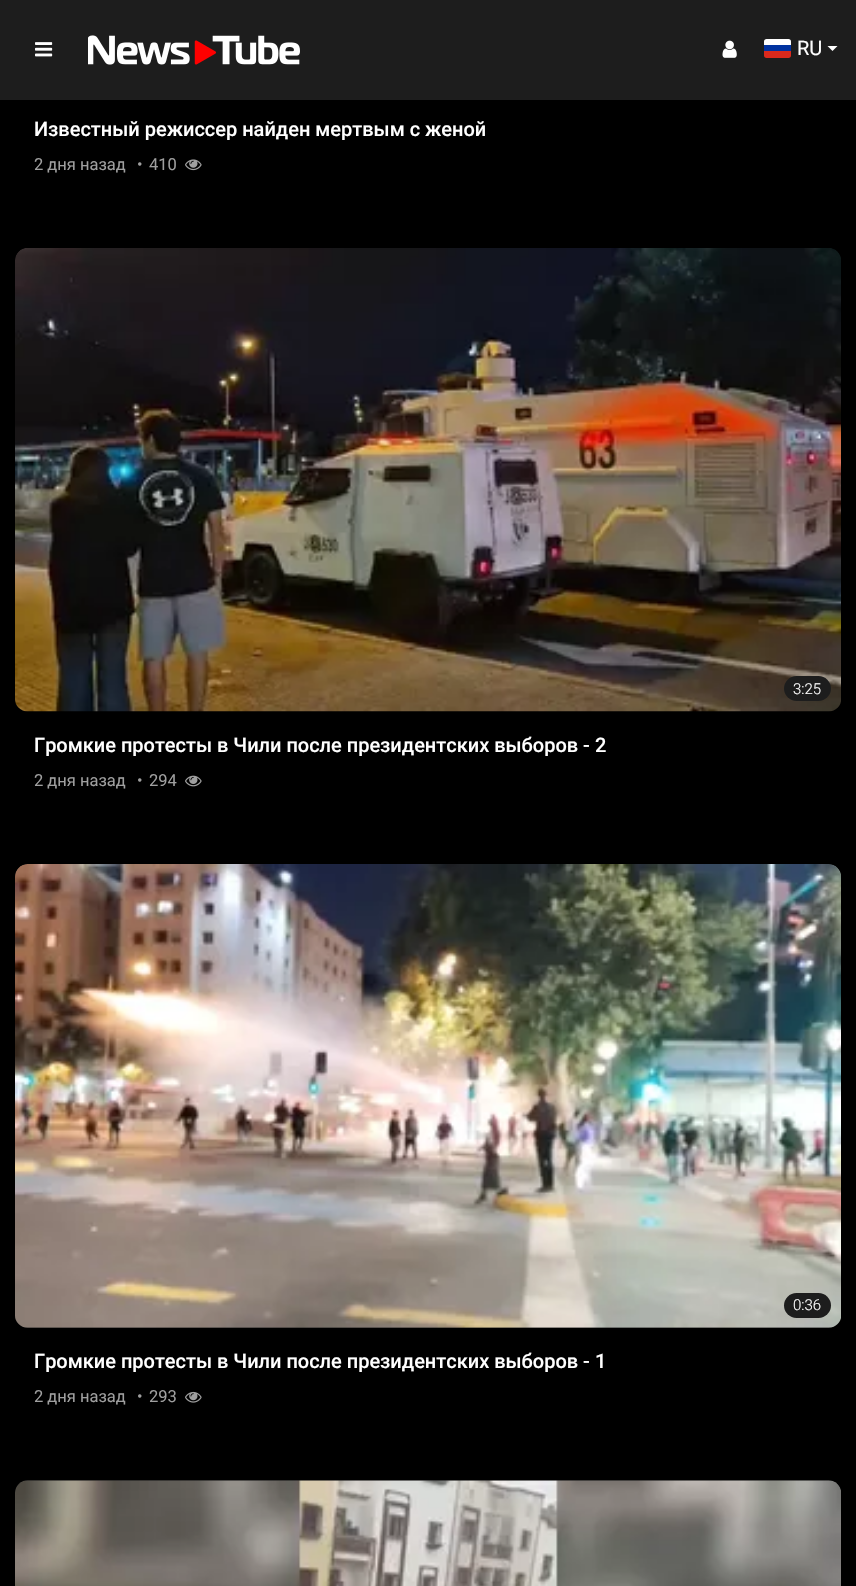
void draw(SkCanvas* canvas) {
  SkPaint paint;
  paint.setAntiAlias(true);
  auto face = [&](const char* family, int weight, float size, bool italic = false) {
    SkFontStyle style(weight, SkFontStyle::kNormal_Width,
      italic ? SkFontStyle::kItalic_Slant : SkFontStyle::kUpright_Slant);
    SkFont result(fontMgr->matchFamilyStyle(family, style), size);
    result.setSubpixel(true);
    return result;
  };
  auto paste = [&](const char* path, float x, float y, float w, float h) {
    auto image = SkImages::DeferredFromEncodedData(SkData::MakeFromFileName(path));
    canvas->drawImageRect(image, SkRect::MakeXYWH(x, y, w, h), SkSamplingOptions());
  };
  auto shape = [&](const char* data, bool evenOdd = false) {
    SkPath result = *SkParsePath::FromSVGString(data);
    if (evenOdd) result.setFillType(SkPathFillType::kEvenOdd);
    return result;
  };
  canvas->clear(0xff000000);
  paint.setColor(0xff1d1d1d);
  canvas->drawRect(SkRect::MakeXYWH(0, 0, 856, 100), paint);
  paste("img/1.png", 35, 42, 18, 15);
  paste("img/2.png", 88, 35, 212, 30);
  paste("img/3.png", 722, 40, 15, 18);
  paint.setColor(0xffda291c);
  canvas->drawPath(shape("M764 51H791V55.5C791 57 790 58 788.5 58H766.5C765 58 764 57 764 55.5Z"), paint);
  paint.setColor(0xff0032a0);
  canvas->drawRect(SkRect::MakeXYWH(764, 45, 27, 6), paint);
  paint.setColor(0xffffffff);
  canvas->drawPath(shape("M766.5 39H788.5C790 39 791 40 791 41.5V45H764V41.5C764 40 765 39 766.5 39Z"), paint);
  canvas->drawPath(shape("M827.5 46H837.5L832.5 51Z"), paint);
  paste("img/4.png", 185, 159, 17, 12);
  paste("img/5.png", 15, 248, 826, 464);
  paint.setColor(0xff1d1d1d);
  canvas->drawRoundRect(SkRect::MakeXYWH(784, 676, 47, 25), 12.5f, 12.5f, paint);
  paste("img/6.png", 185, 775, 17, 12);
  canvas->drawRoundRect(SkRect::MakeXYWH(15, 864, 826, 464), 13, 13, paint);
  paste("img/7.png", 15, 864, 826, 464);
  canvas->drawRoundRect(SkRect::MakeXYWH(784, 1293, 47, 25), 12.5f, 12.5f, paint);
  paste("img/8.png", 185, 1391, 17, 12);
  canvas->drawRoundRect(SkRect::MakeXYWH(15, 1480, 826, 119), 13, 13, paint);
  paste("img/9.png", 15, 1480, 826, 106);
  auto f0 = face("Roboto", 400, 20);
  paint.setColor(0xffffffff);
  canvas->drawString("RU", 797, 55, f0, paint);
  auto f1 = face("Roboto", 500, 20);
  canvas->drawString("Известный режиссер найден мертвым с женой", 34, 136, f1, paint);
  auto f2 = face("Roboto", 400, 16.5f);
  paint.setColor(0xff9f9f9f);
  {
    const struct { const char* s; float x, y; } items[] = {
      {"2 дня назад", 34, 170},
      {"•", 137, 170},
      {"410", 149, 170},
    };
    for (auto [s, x, y] : items) {
      canvas->drawString(s, x, y, f2, paint);
    }
  }
  auto f3 = face("Roboto", 300, 15);
  paint.setColor(0xffffffff);
  canvas->drawString("3:25", 793, 694, f3, paint);
  canvas->drawString("Громкие протесты в Чили после президентских выборов - 2", 34, 752, f1, paint);
  paint.setColor(0xff9f9f9f);
  {
    const struct { const char* s; float x, y; } items[] = {
      {"2 дня назад", 34, 786},
      {"•", 137, 786},
      {"294", 149, 786},
    };
    for (auto [s, x, y] : items) {
      canvas->drawString(s, x, y, f2, paint);
    }
  }
  paint.setColor(0xffffffff);
  canvas->drawString("0:36", 793, 1310, f3, paint);
  canvas->drawString("Громкие протесты в Чили после президентских выборов - 1", 34, 1368, f1, paint);
  paint.setColor(0xff9f9f9f);
  {
    const struct { const char* s; float x, y; } items[] = {
      {"2 дня назад", 34, 1402},
      {"•", 137, 1402},
      {"293", 149, 1402},
    };
    for (auto [s, x, y] : items) {
      canvas->drawString(s, x, y, f2, paint);
    }
  }
}
